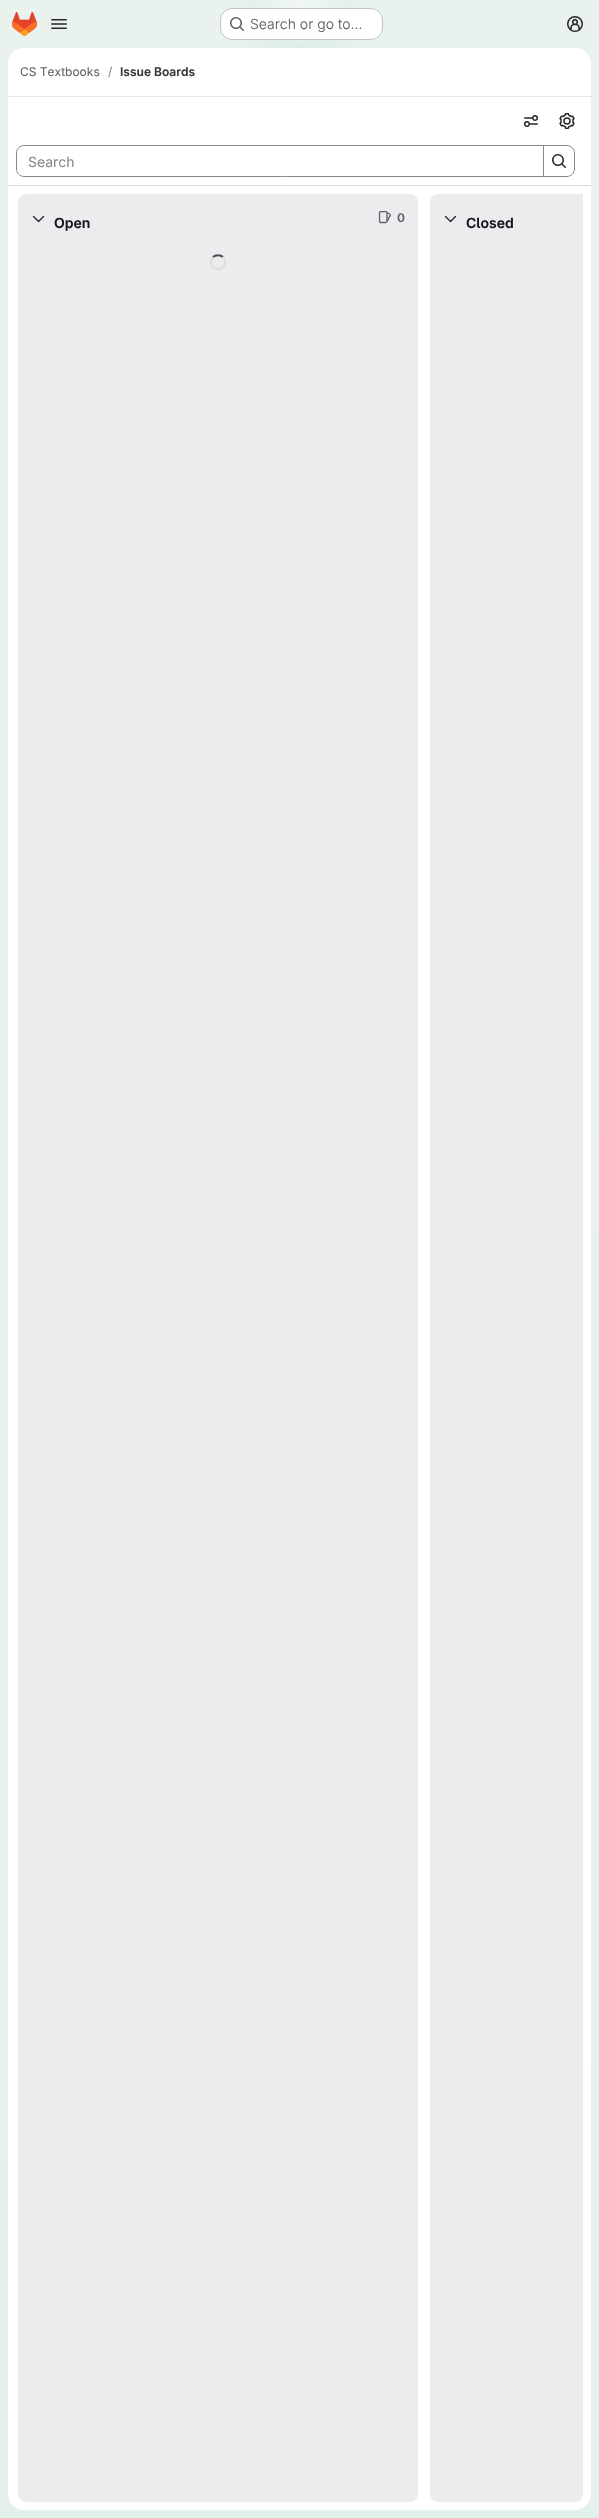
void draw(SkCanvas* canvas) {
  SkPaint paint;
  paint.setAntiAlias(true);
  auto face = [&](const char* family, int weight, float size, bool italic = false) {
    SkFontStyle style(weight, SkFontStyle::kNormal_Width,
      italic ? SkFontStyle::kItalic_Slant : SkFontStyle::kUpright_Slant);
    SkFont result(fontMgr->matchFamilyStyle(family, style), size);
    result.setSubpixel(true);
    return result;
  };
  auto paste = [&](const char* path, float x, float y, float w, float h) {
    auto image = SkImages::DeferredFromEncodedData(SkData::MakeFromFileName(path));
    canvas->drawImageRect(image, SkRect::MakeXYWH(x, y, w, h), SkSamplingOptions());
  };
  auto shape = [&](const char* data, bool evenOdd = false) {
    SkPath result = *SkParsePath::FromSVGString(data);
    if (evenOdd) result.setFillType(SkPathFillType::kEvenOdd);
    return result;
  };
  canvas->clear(0xffffffff);
  {
    const SkColor colors[] = {0xffe4f0eb, 0xffe9f2ed};
    const float stops[] = {0, 0.7f};
    const SkPoint ends[] = {{524, 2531}, {75, -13}};
    paint.setShader(SkGradientShader::MakeLinear(ends, colors, stops, 2, SkTileMode::kClamp));
    paint.setAlpha(255);
  }
  canvas->drawRect(SkRect::MakeXYWH(0, 0, 599, 2518), paint);
  {
    const SkColor colors[] = {0xffddede6, 0x00ddede6};
    const float stops[] = {0, 0.23f};
    SkMatrix m = SkMatrix::Translate(300, 0).preScale(300, 2518);
    paint.setShader(SkGradientShader::MakeRadial({0, 0}, 1, colors, stops, 2, SkTileMode::kClamp, 0, &m));
    paint.setAlpha(255);
  }
  canvas->drawRect(SkRect::MakeXYWH(241, 0, 118, 48), paint);
  {
    const SkColor colors[] = {0xffdeede5, 0x00deede5};
    const float stops[] = {0, 0.17f};
    SkMatrix m = SkMatrix::Translate(300, 0).preScale(300, 2518);
    paint.setShader(SkGradientShader::MakeRadial({0, 0}, 1, colors, stops, 2, SkTileMode::kClamp, 0, &m));
    paint.setAlpha(255);
  }
  canvas->drawRect(SkRect::MakeXYWH(271, 3, 58, 44), paint);
  {
    const SkColor colors[] = {0x99ffffff, 0x00ffffff};
    const float stops[] = {0, 0.02f};
    paint.setShader(SkGradientShader::MakeRadial({300, 0}, 2536, colors, stops, 2, SkTileMode::kClamp));
    paint.setAlpha(255);
  }
  canvas->drawRect(SkRect::MakeXYWH(257, 0, 86, 44), paint);
  paste("img/1.png", 12, 12, 25, 24);
  paste("img/2.png", 51, 19, 16, 10);
  paint.setShader(nullptr);
  paint.setColor(0xffffffff);
  canvas->drawRoundRect(SkRect::MakeXYWH(220, 8, 163, 32), 12, 12, paint);
  paint.setStroke(true);
  paint.setStrokeWidth(1);
  paint.setColor(0x3d050506);
  canvas->drawRoundRect(SkRect::MakeXYWH(220.5f, 8.5f, 162, 31), 11.5f, 11.5f, paint);
  paste("img/3.png", 230, 17, 14, 14);
  paste("img/4.png", 567, 16, 16, 16);
  paint.setStroke(false);
  paint.setColor(0xffffffff);
  canvas->drawRoundRect(SkRect::MakeXYWH(8, 48, 583, 2462), 16, 16, paint);
  canvas->drawPath(shape("M24 48H575C584 48 591 55 591 64V97H8V64C8 55 15 48 24 48Z"), paint);
  paint.setColor(0xffdfece5);
  canvas->drawRect(SkRect::MakeXYWH(8, 96, 583, 1), paint);
  paint.setColor(0xffdcdcde);
  canvas->drawRect(SkRect::MakeXYWH(8, 185, 583, 1), paint);
  paste("img/5.png", 524, 115, 14, 12);
  paste("img/6.png", 559, 113, 16, 16);
  paint.setStroke(true);
  paint.setColor(0xff89888d);
  canvas->drawPath(shape("M24 145.5H543.5V176.5H24C20 176.5 16.5 173 16.5 169V153C16.5 149 20 145.5 24 145.5Z"), paint);
  paint.setStroke(false);
  paint.setColor(0xffffffff);
  canvas->drawPath(shape("M543.5 145.5H567C571 145.5 574.5 149 574.5 153V169C574.5 173 571 176.5 567 176.5H543.5Z"), paint);
  paint.setStroke(true);
  paint.setColor(0xff89888d);
  canvas->drawPath(shape("M543.5 145.5H567C571 145.5 574.5 149 574.5 153V169C574.5 173 571 176.5 567 176.5H543.5Z"), paint);
  paste("img/7.png", 552, 154, 14, 14);
  paint.setStroke(false);
  paint.setColor(0xffececef);
  canvas->drawRoundRect(SkRect::MakeXYWH(18, 194, 400, 2308), 8, 8, paint);
  paint.setStroke(true);
  paint.setStrokeWidth(1.4f);
  paint.setStrokeCap(SkPaint::kRound_Cap);
  paint.setStrokeJoin(SkPaint::kRound_Join);
  paint.setColor(0xff28272d);
  canvas->drawPath(shape("M33.5 216.5L38.5 221.5L43.5 216.5"), paint);
  paste("img/8.png", 378, 211, 13, 13);
  paint.setStrokeWidth(2);
  paint.setStrokeCap(SkPaint::kButt_Cap);
  paint.setStrokeJoin(SkPaint::kMiter_Join);
  paint.setColor(0xff4c4b51);
  canvas->drawPath(shape("M213 257C215.5 254.5 220.5 254.5 223 257"), paint);
  paint.setColor(0xffdcdcde);
  canvas->drawPath(shape("M223 257C224.5 258.5 225 260 225 262C225 270.5 213 271.5 211 263.5C210.5 261 211.5 258.5 213 257"), paint);
  paint.setStroke(false);
  paint.setColor(0xffececef);
  canvas->drawPath(shape("M438 194H583V2494C583 2498.5 579.5 2502 575 2502H438C433.5 2502 430 2498.5 430 2494V202C430 197.5 433.5 194 438 194Z"), paint);
  paint.setStroke(true);
  paint.setStrokeWidth(1.4f);
  paint.setStrokeCap(SkPaint::kRound_Cap);
  paint.setStrokeJoin(SkPaint::kRound_Join);
  paint.setColor(0xff28272d);
  canvas->drawPath(shape("M445.5 216.5L450.5 221.5L455.5 216.5"), paint);
  auto f0 = face("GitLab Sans", 300, 14);
  paint.setStroke(false);
  paint.setColor(0xff626168);
  canvas->drawString("Search or go to…", 250, 29, f0, paint);
  auto f1 = face("GitLab Sans", 400, 12);
  canvas->drawString("CS Textbooks", 20, 76, f1, paint);
  paint.setColor(0xff89888d);
  canvas->drawString("/", 108, 76, f1, paint);
  auto f2 = face("GitLab Sans", 600, 12);
  paint.setColor(0xff3a383f);
  canvas->drawString("Issue Boards", 120, 76, f2, paint);
  auto f3 = face("GitLab Sans", 400, 14);
  paint.setColor(0xff89888d);
  canvas->drawString("Search", 28, 167, f3, paint);
  auto f4 = face("GitLab Sans", 600, 14);
  paint.setColor(0xff18171d);
  canvas->drawString("Open", 54, 228, f4, paint);
  paint.setColor(0xff626168);
  canvas->drawString("0", 397, 222, f2, paint);
  paint.setColor(0xff18171d);
  canvas->drawString("Closed", 466, 228, f4, paint);
}
